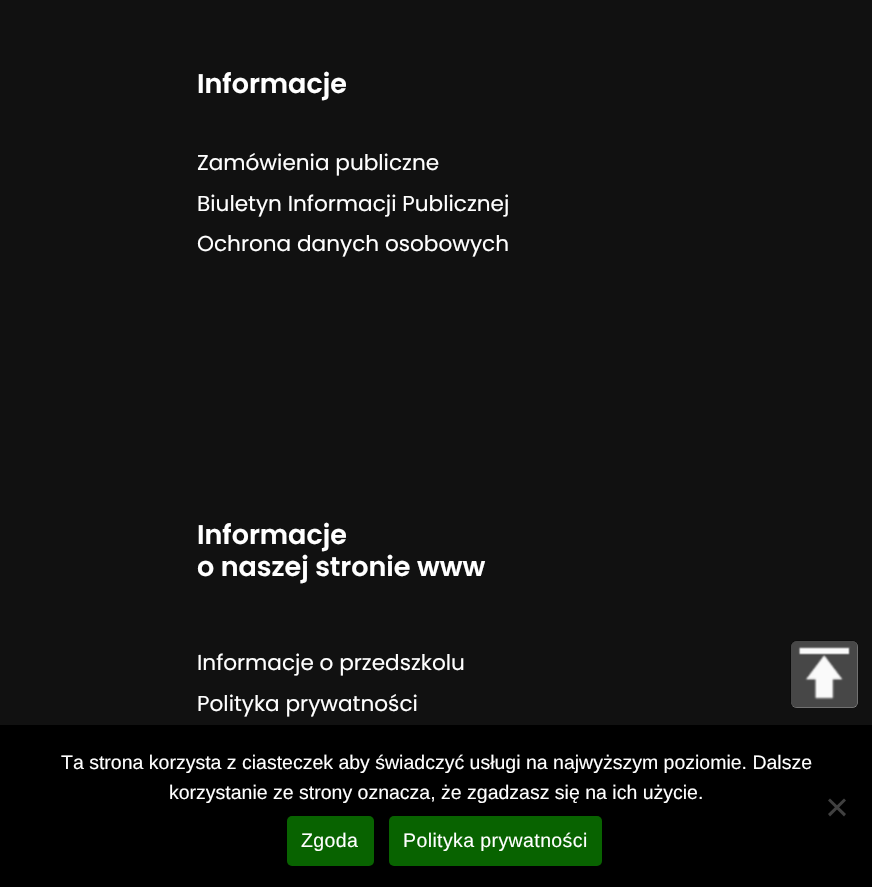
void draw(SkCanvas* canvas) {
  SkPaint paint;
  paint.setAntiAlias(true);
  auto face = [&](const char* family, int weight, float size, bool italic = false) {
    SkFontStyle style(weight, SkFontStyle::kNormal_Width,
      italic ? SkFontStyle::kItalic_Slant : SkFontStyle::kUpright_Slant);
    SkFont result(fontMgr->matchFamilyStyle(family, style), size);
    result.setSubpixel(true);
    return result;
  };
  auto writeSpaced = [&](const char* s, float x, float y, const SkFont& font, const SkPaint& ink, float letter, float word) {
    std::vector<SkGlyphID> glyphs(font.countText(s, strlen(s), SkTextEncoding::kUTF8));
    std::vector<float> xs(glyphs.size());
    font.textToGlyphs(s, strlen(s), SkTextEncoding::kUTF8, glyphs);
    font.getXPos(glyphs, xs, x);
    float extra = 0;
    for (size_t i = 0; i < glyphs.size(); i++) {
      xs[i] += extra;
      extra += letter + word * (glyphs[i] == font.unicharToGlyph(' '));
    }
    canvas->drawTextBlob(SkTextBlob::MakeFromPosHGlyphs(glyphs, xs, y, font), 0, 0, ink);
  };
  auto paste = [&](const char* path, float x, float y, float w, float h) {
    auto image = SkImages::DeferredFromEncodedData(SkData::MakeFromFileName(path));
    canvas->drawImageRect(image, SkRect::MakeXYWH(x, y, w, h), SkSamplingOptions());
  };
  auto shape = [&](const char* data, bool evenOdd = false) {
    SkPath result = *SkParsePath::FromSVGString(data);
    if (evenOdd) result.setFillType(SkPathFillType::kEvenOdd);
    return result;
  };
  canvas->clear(0xff111111);
  paint.setColor(0xffefefef);
  canvas->drawRoundRect(SkRect::MakeXYWH(791, 641, 67, 67), 6, 6, paint);
  paste("img/1.png", 790, 640, 68, 68);
  paint.setColor(0xff000000);
  canvas->drawRect(SkRect::MakeXYWH(0, 725, 872, 162), paint);
  paint.setColor(0xff404040);
  canvas->drawPath(shape("M844 798.5L846 800.5L830 816.5L828 814Z"), paint);
  canvas->drawPath(shape("M828 800.5L830 798.5L846 814L844 816.5Z"), paint);
  paint.setColor(0xff086300);
  canvas->drawRoundRect(SkRect::MakeXYWH(287, 816, 87, 50), 5, 5, paint);
  canvas->drawRoundRect(SkRect::MakeXYWH(389, 816, 213, 50), 5, 5, paint);
  auto f0 = face("Poppins", 600, 27);
  paint.setColor(0xffffffff);
  canvas->drawString("Informacje", 197, 93, f0, paint);
  auto f1 = face("Poppins", 400, 21.6f);
  {
    const struct { const char* s; float x, y; } items[] = {
      {"Zamówienia publiczne", 197, 170},
      {"Biuletyn Informacji Publicznej", 197, 211},
      {"Ochrona danych osobowych", 197, 251},
    };
    for (auto [s, x, y] : items) {
      canvas->drawString(s, x, y, f1, paint);
    }
  }
  canvas->drawString("Informacje", 197, 544, f0, paint);
  canvas->drawString("o naszej stronie www", 197, 576, f0, paint);
  canvas->drawString("Informacje o przedszkolu", 197, 670, f1, paint);
  canvas->drawString("Polityka prywatności", 197, 711, f1, paint);
  auto f2 = face("Liberation Sans", 400, 19.5f);
  canvas->drawString("Ta strona korzysta z ciasteczek aby świadczyć usługi na najwyższym poziomie. Dalsze", 61, 769, f2, paint);
  canvas->drawString("korzystanie ze strony oznacza, że zgadzasz się na ich użycie.", 169, 799, f2, paint);
  writeSpaced("Zgoda", 301, 847, f2, paint, 0.4f, 0);
  writeSpaced("Polityka prywatności", 403, 847, f2, paint, 0.4f, 0);
}
